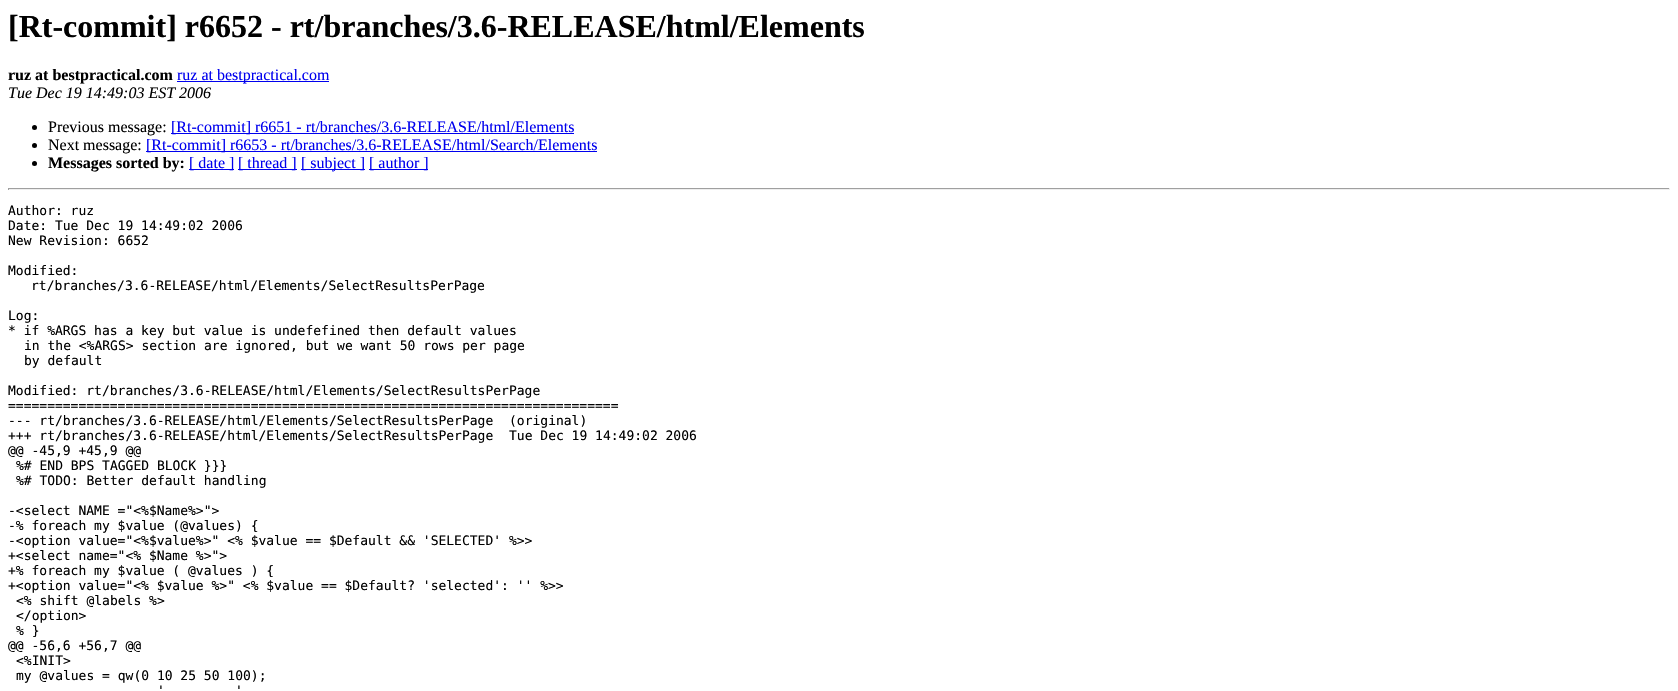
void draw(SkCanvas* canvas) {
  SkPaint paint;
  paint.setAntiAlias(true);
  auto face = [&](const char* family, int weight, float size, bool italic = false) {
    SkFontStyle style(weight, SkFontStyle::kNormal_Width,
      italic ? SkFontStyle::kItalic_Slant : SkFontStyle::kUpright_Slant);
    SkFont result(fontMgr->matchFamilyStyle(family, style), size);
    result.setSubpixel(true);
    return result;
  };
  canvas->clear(0xffffffff);
  paint.setColor(0xff0000ee);
  canvas->drawRect(SkRect::MakeXYWH(177, 81, 152, 1), paint);
  paint.setColor(0xff000000);
  canvas->drawCircle(34.5f, 127.5f, 2.5f, paint);
  paint.setColor(0xff0000ee);
  canvas->drawRect(SkRect::MakeXYWH(171, 133, 403, 1), paint);
  paint.setColor(0xff000000);
  canvas->drawCircle(34.5f, 145.5f, 2.5f, paint);
  paint.setColor(0xff0000ee);
  canvas->drawRect(SkRect::MakeXYWH(146, 151, 451, 1), paint);
  paint.setColor(0xff000000);
  canvas->drawCircle(34.5f, 163.5f, 2.5f, paint);
  {
    const struct { float x, y, w, h; SkColor color; } items[] = {
      {189, 169, 45, 1, 0xff0000ee},
      {238, 169, 59, 1, 0xff0000ee},
      {301, 169, 64, 1, 0xff0000ee},
      {369, 169, 59, 1, 0xff0000ee},
      {8, 188, 1662, 1, 0xff9f9f9f},
      {1669, 188, 1, 2, 0xffeeeeee},
      {8, 189, 1662, 1, 0xffeeeeee},
      {8, 188, 1, 2, 0xff9f9f9f},
    };
    for (auto [x, y, w, h, color] : items) {
      paint.setColor(color);
      canvas->drawRect(SkRect::MakeXYWH(x, y, w, h), paint);
    }
  }
  auto f0 = face("Liberation Serif", 700, 32);
  paint.setColor(0xff000000);
  canvas->drawString("[Rt-commit] r6652 - rt/branches/3.6-RELEASE/html/Elements", 8, 37, f0, paint);
  auto f1 = face("Liberation Serif", 700, 16);
  canvas->drawString("ruz at bestpractical.com", 8, 80, f1, paint);
  auto f2 = face("Liberation Serif", 400, 16);
  paint.setColor(0xff0000ee);
  canvas->drawString("ruz at bestpractical.com", 177, 80, f2, paint);
  auto f3 = face("Liberation Serif", 400, 16, true);
  paint.setColor(0xff000000);
  canvas->drawString("Tue Dec 19 14:49:03 EST 2006", 8, 98, f3, paint);
  canvas->drawString("Previous message:", 48, 132, f2, paint);
  paint.setColor(0xff0000ee);
  canvas->drawString("[Rt-commit] r6651 - rt/branches/3.6-RELEASE/html/Elements", 171, 132, f2, paint);
  paint.setColor(0xff000000);
  canvas->drawString("Next message:", 48, 150, f2, paint);
  paint.setColor(0xff0000ee);
  canvas->drawString("[Rt-commit] r6653 - rt/branches/3.6-RELEASE/html/Search/Elements", 146, 150, f2, paint);
  paint.setColor(0xff000000);
  canvas->drawString("Messages sorted by:", 48, 168, f1, paint);
  paint.setColor(0xff0000ee);
  {
    const struct { const char* s; float x, y; } items[] = {
      {"[ date ]", 189, 168},
      {"[ thread ]", 238, 168},
      {"[ subject ]", 301, 168},
      {"[ author ]", 369, 168},
    };
    for (auto [s, x, y] : items) {
      canvas->drawString(s, x, y, f2, paint);
    }
  }
  auto f4 = face("DejaVu Sans Mono", 400, 13);
  paint.setColor(0xff000000);
  {
    const struct { const char* s; float x, y; } items[] = {
      {"Author: ruz", 8, 215},
      {"Date: Tue Dec 19 14:49:02 2006", 8, 230},
      {"New Revision: 6652", 8, 245},
      {"Modified:", 8, 275},
      {"rt/branches/3.6-RELEASE/html/Elements/SelectResultsPerPage", 31, 290},
      {"Log:", 8, 320},
      {"* if %ARGS has a key but value is undefefined then default values", 8, 335},
      {"in the <%ARGS> section are ignored, but we want 50 rows per page", 24, 350},
      {"by default", 24, 365},
      {"Modified: rt/branches/3.6-RELEASE/html/Elements/SelectResultsPerPage", 8, 395},
      {"==============================================================================", 8, 410},
      {"--- rt/branches/3.6-RELEASE/html/Elements/SelectResultsPerPage", 8, 425},
      {"(original)", 509, 425},
      {"+++ rt/branches/3.6-RELEASE/html/Elements/SelectResultsPerPage", 8, 440},
      {"Tue Dec 19 14:49:02 2006", 509, 440},
      {"@@ -45,9 +45,9 @@", 8, 455},
      {"%# END BPS TAGGED BLOCK }}}", 16, 470},
      {"%# TODO: Better default handling", 16, 485},
      {"-<select NAME =\"<%$Name%>\">", 8, 515},
      {"-% foreach my $value (@values) {", 8, 530},
      {"-<option value=\"<%$value%>\" <% $value == $Default && 'SELECTED' %>>", 8, 545},
      {"+<select name=\"<% $Name %>\">", 8, 560},
      {"+% foreach my $value ( @values ) {", 8, 575},
      {"+<option value=\"<% $value %>\" <% $value == $Default? 'selected': '' %>>", 8, 590},
      {"<% shift @labels %>", 16, 605},
      {"</option>", 16, 620},
      {"% }", 16, 635},
      {"@@ -56,6 +56,7 @@", 8, 650},
      {"<%INIT>", 16, 665},
      {"my @values = qw(0 10 25 50 100);", 16, 680},
      {"'", 157, 695},
      {"'", 235, 695},
    };
    for (auto [s, x, y] : items) {
      canvas->drawString(s, x, y, f4, paint);
    }
  }
}
